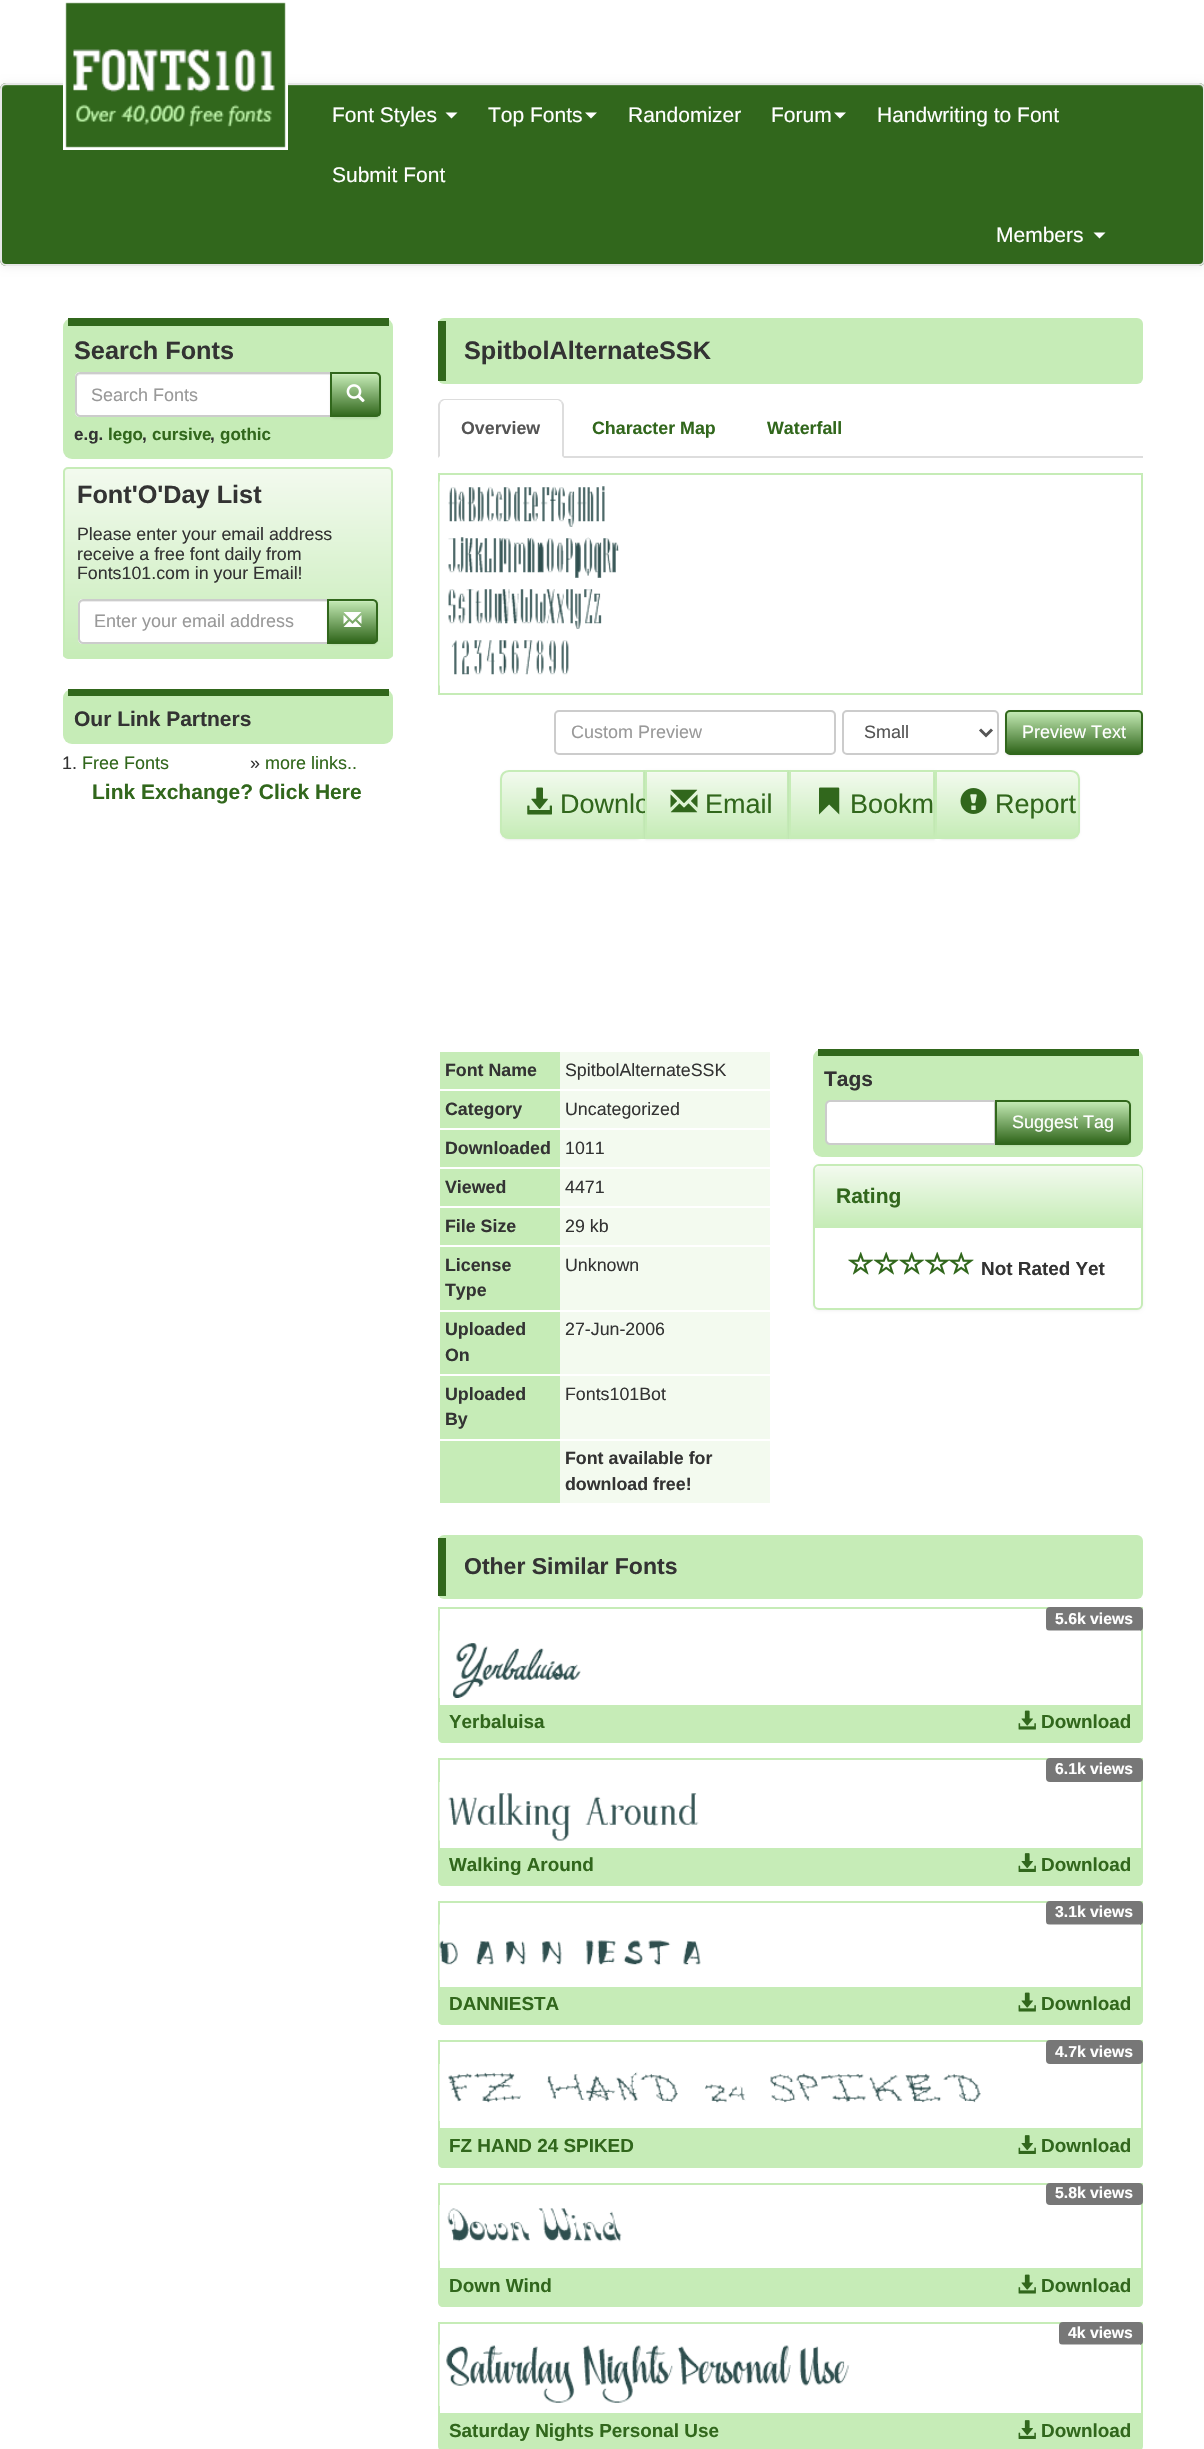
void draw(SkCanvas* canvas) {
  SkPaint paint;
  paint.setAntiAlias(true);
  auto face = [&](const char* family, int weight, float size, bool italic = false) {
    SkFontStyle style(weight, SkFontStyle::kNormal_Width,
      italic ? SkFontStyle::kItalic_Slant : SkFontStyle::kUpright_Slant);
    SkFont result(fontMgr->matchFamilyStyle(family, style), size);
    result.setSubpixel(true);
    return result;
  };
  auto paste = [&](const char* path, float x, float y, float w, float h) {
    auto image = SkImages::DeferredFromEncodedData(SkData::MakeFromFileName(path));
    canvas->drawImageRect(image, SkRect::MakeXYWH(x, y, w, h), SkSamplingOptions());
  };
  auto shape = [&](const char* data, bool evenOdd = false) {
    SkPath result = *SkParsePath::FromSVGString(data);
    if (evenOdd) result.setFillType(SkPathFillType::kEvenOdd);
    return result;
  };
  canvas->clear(0xffffffff);
  paint.setColor(0x12000000);
  paint.setMaskFilter(SkMaskFilter::MakeBlur(kNormal_SkBlurStyle, 4));
  canvas->drawRoundRect(SkRect::MakeXYWH(0, 84, 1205, 183), 6, 6, paint);
  paint.setMaskFilter(nullptr);
  paint.setColor(0xff31671c);
  canvas->drawRoundRect(SkRect::MakeXYWH(0, 83, 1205, 183), 6, 6, paint);
  paint.setColor(0xff507e3e);
  canvas->drawPath(shape("M6 86H1198C1201 86 1203 88 1203 90C1203 87 1201 84 1198 84H7C4 84 2 87 2 90C2 88 4 86 6 86Z"), paint);
  paint.setStroke(true);
  paint.setStrokeWidth(2);
  paint.setColor(0xffe7e7e7);
  canvas->drawRoundRect(SkRect::MakeXYWH(1, 84, 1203, 181), 5, 5, paint);
  paste("img/1.png", 63, 2, 225, 148);
  paint.setStroke(false);
  paint.setColor(0xffffffff);
  canvas->drawPath(shape("M445.5 112.5H457.5L451.5 118.5Z"), paint);
  canvas->drawPath(shape("M585 112.5H597L591 118.5Z"), paint);
  canvas->drawPath(shape("M834 112.5H846L840 118.5Z"), paint);
  canvas->drawPath(shape("M1093.5 232.5H1105.5L1099.5 238.5Z"), paint);
  paint.setColor(0xffc6ecb7);
  canvas->drawRoundRect(SkRect::MakeXYWH(63, 318, 330, 141), 9, 9, paint);
  paint.setColor(0xff31671c);
  canvas->drawRect(SkRect::MakeXYWH(68, 318, 321, 8), paint);
  paint.setColor(0xffffffff);
  canvas->drawPath(shape("M80 372H332V417H80C77 417 75 415 75 412V377C75 374 77 372 80 372Z"), paint);
  paint.setColor(0xffececec);
  canvas->drawPath(shape("M80 375H330V374H80C79 374 78 375 77 376Z"), paint);
  paint.setStroke(true);
  paint.setColor(0xffcccccc);
  canvas->drawPath(shape("M80 373H331V416H80C78 416 76 414 76 412V377C76 375 78 373 80 373Z"), paint);
  paint.setStroke(false);
  paint.setColor(0x12000000);
  paint.setMaskFilter(SkMaskFilter::MakeBlur(kNormal_SkBlurStyle, 1));
  canvas->drawRoundRect(SkRect::MakeXYWH(330, 374, 51, 45), 5, 5, paint);
  paint.setMaskFilter(nullptr);
  canvas->save();
  canvas->clipPath(shape("M330 372H376C379 372 381 374 381 377V412C381 415 379 417 376 417H330Z"), true);
  {
    const SkColor colors[] = {0xffc6ecb7, 0xff31671c};
    const float stops[] = {0, 1};
    const SkPoint ends[] = {{356, 374}, {356, 416}};
    paint.setShader(SkGradientShader::MakeLinear(ends, colors, stops, 2, SkTileMode::kClamp));
    paint.setAlpha(255);
  }
  canvas->drawRect(SkRect::MakeXYWH(332, 374, 49, 42), paint);
  canvas->restore();
  paint.setShader(nullptr);
  paint.setColor(0x26ffffff);
  canvas->drawPath(shape("M332 375H376C378 375 380 376 380 378V377C380 375 379 374 377 374H332Z"), paint);
  paint.setStroke(true);
  paint.setColor(0xff31671c);
  canvas->drawPath(shape("M331 373H376C378 373 380 375 380 377V412C380 414 378 416 376 416H331Z"), paint);
  paste("img/2.png", 346, 384, 19, 19);
  canvas->save();
  canvas->clipPath(shape("M68 467H388C391 467 393 469 393 472V654C393 657 391 659 388 659H68C65 659 63 657 63 654V472C63 469 65 467 68 467Z"), true);
  paint.setStroke(false);
  {
    const SkColor colors[] = {0xfff3faef, 0xffc6ecb7};
    const float stops[] = {0, 1};
    const SkPoint ends[] = {{228, 468}, {228, 657}};
    paint.setShader(SkGradientShader::MakeLinear(ends, colors, stops, 2, SkTileMode::kClamp));
    paint.setAlpha(255);
  }
  canvas->drawRect(SkRect::MakeXYWH(63, 468, 330, 189), paint);
  canvas->restore();
  paint.setStroke(true);
  paint.setShader(nullptr);
  paint.setColor(0xffc6ecb7);
  canvas->drawRoundRect(SkRect::MakeXYWH(64, 468, 328, 190), 4, 4, paint);
  paint.setStroke(false);
  paint.setColor(0xffffffff);
  canvas->drawPath(shape("M83 599H329V644H83C80 644 78 642 78 639V604C78 601 80 599 83 599Z"), paint);
  paint.setColor(0xffececec);
  canvas->drawPath(shape("M82 602H327V600H83C81 600 80 602 80 604C80 603 81 602 82 602Z"), paint);
  paint.setStroke(true);
  paint.setColor(0xffcccccc);
  canvas->drawPath(shape("M83 600H328V643H83C81 643 79 641 79 639V604C79 602 81 600 83 600Z"), paint);
  paint.setStroke(false);
  paint.setColor(0x12000000);
  paint.setMaskFilter(SkMaskFilter::MakeBlur(kNormal_SkBlurStyle, 1));
  canvas->drawRoundRect(SkRect::MakeXYWH(327, 600, 51, 45), 5, 5, paint);
  paint.setMaskFilter(nullptr);
  canvas->save();
  canvas->clipPath(shape("M327 599H373C376 599 378 601 378 604V639C378 642 376 644 373 644H327Z"), true);
  {
    const SkColor colors[] = {0xffc6ecb7, 0xff31671c};
    const float stops[] = {0, 1};
    const SkPoint ends[] = {{353, 600}, {353, 642}};
    paint.setShader(SkGradientShader::MakeLinear(ends, colors, stops, 2, SkTileMode::kClamp));
    paint.setAlpha(255);
  }
  canvas->drawRect(SkRect::MakeXYWH(329, 600, 49, 42), paint);
  canvas->restore();
  paint.setShader(nullptr);
  paint.setColor(0x26ffffff);
  canvas->drawPath(shape("M329 600V602H366C379 602 376 601 376 616V641C377 641 377 640 377 639V603C377 601 376 600 374 600Z"), paint);
  paint.setStroke(true);
  paint.setColor(0xff31671c);
  canvas->drawPath(shape("M328 600H373C375 600 377 602 377 604V639C377 641 375 643 373 643H328Z"), paint);
  paste("img/3.png", 343, 612, 19, 15);
  paint.setStroke(false);
  paint.setColor(0xffc6ecb7);
  canvas->drawRoundRect(SkRect::MakeXYWH(63, 689, 330, 55), 9, 9, paint);
  paint.setColor(0xff31671c);
  canvas->drawRect(SkRect::MakeXYWH(68, 689, 321, 7), paint);
  paint.setColor(0xffc6ecb7);
  canvas->drawRoundRect(SkRect::MakeXYWH(438, 318, 705, 66), 6, 6, paint);
  paint.setColor(0xff31671c);
  canvas->drawRect(SkRect::MakeXYWH(438, 321, 8, 60), paint);
  paint.setColor(0xffdddddd);
  canvas->drawRect(SkRect::MakeXYWH(564, 456, 579, 2), paint);
  canvas->drawPath(shape("M444 399C442 399 441 400 440 401L441 402L444 400H558L561 402L562 401C561 400 560 399 558 399Z"), paint);
  canvas->drawPath(shape("M564 458V405C564 404 563 402 562 401L561 402L562 405V456Z"), paint);
  canvas->drawPath(shape("M438 458L440 456V405L441 402L440 401C439 402 438 404 438 405Z"), paint);
  paint.setStroke(true);
  paint.setColor(0xffc6ecb7);
  canvas->drawRect(SkRect::MakeXYWH(439, 474, 703, 220), paint);
  paste("img/4.png", 439, 481, 180, 205);
  paint.setStroke(false);
  paint.setColor(0xffececec);
  canvas->drawPath(shape("M558 712H831C833 712 834 714 834 716V714C834 712 833 711 831 711H558C556 711 555 712 555 714V716C555 714 556 712 558 712Z"), paint);
  paint.setStroke(true);
  paint.setColor(0xffcccccc);
  canvas->drawRoundRect(SkRect::MakeXYWH(555, 711, 280, 43), 4, 4, paint);
  canvas->drawRoundRect(SkRect::MakeXYWH(843, 711, 155, 43), 4, 4, paint);
  paint.setStrokeWidth(3);
  paint.setColor(0xff555555);
  canvas->drawPath(shape("M980 729.5L986 735.5L992 729.5"), paint);
  paint.setStroke(false);
  paint.setColor(0x12000000);
  paint.setMaskFilter(SkMaskFilter::MakeBlur(kNormal_SkBlurStyle, 1));
  canvas->drawRoundRect(SkRect::MakeXYWH(1005, 711, 138, 45), 5, 5, paint);
  paint.setMaskFilter(nullptr);
  canvas->save();
  canvas->clipPath(shape("M1010 710H1138C1141 710 1143 712 1143 715V750C1143 753 1141 755 1138 755H1010C1007 755 1005 753 1005 750V715C1005 712 1007 710 1010 710Z"), true);
  {
    const SkColor colors[] = {0xffc6ecb7, 0xff31671c};
    const float stops[] = {0, 1};
    const SkPoint ends[] = {{1074, 711}, {1074, 753}};
    paint.setShader(SkGradientShader::MakeLinear(ends, colors, stops, 2, SkTileMode::kClamp));
    paint.setAlpha(255);
  }
  canvas->drawRect(SkRect::MakeXYWH(1005, 711, 138, 42), paint);
  canvas->restore();
  paint.setStroke(true);
  paint.setStrokeWidth(2);
  paint.setShader(nullptr);
  paint.setColor(0xff31671c);
  canvas->drawRoundRect(SkRect::MakeXYWH(1006, 711, 136, 43), 4, 4, paint);
  paint.setStroke(false);
  paint.setColor(0x12000000);
  paint.setMaskFilter(SkMaskFilter::MakeBlur(kNormal_SkBlurStyle, 1));
  canvas->drawRoundRect(SkRect::MakeXYWH(500, 771, 145, 69), 9, 9, paint);
  paint.setMaskFilter(nullptr);
  canvas->save();
  canvas->clipPath(shape("M509 770H645V839H509C504 839 500 835 500 830V779C500 774 504 770 509 770Z"), true);
  {
    const SkColor colors[] = {0xfff3faef, 0xffc6ecb7};
    const float stops[] = {0, 1};
    const SkPoint ends[] = {{572, 771}, {572, 837}};
    paint.setShader(SkGradientShader::MakeLinear(ends, colors, stops, 2, SkTileMode::kClamp));
    paint.setAlpha(255);
  }
  canvas->drawRect(SkRect::MakeXYWH(500, 771, 143, 66), paint);
  canvas->restore();
  paint.setStroke(true);
  paint.setShader(nullptr);
  paint.setColor(0xffc6ecb7);
  canvas->drawPath(shape("M509 771H644V838H509C504.5 838 501 834.5 501 830V779C501 774.5 504.5 771 509 771Z"), paint);
  paste("img/5.png", 527, 787, 25, 28);
  paint.setStroke(false);
  paint.setColor(0x12000000);
  paint.setMaskFilter(SkMaskFilter::MakeBlur(kNormal_SkBlurStyle, 1));
  canvas->drawRect(SkRect::MakeXYWH(645, 771, 144, 69), paint);
  paint.setMaskFilter(nullptr);
  {
    const struct { float x, y, w, h; SkColor color; } items[] = {
      {647, 772, 141, 1, 0xfff4fbf1},
      {440, 1052, 120, 37, 0xffc6ecb7},
      {560, 1052, 210, 37, 0xfff3faef},
      {440, 1091, 120, 37, 0xffc6ecb7},
      {560, 1091, 210, 37, 0xfff3faef},
      {440, 1130, 120, 37, 0xffc6ecb7},
      {560, 1130, 210, 37, 0xfff3faef},
      {440, 1169, 120, 37, 0xffc6ecb7},
      {560, 1169, 210, 37, 0xfff3faef},
      {440, 1208, 120, 37, 0xffc6ecb7},
      {560, 1208, 210, 37, 0xfff3faef},
      {440, 1247, 120, 63, 0xffc6ecb7},
      {560, 1247, 210, 63, 0xfff3faef},
      {440, 1312, 120, 62, 0xffc6ecb7},
      {560, 1312, 210, 62, 0xfff3faef},
      {440, 1376, 120, 63, 0xffc6ecb7},
      {560, 1376, 210, 63, 0xfff3faef},
      {440, 1441, 120, 62, 0xffc6ecb7},
      {560, 1441, 210, 62, 0xfff3faef},
    };
    for (auto [x, y, w, h, color] : items) {
      paint.setColor(color);
      canvas->drawRect(SkRect::MakeXYWH(x, y, w, h), paint);
    }
  }
  paint.setColor(0xffc6ecb7);
  canvas->drawRoundRect(SkRect::MakeXYWH(813, 1049, 330, 108), 9, 9, paint);
  paint.setColor(0xff31671c);
  canvas->drawRect(SkRect::MakeXYWH(818, 1049, 321, 7), paint);
  paint.setColor(0xffffffff);
  canvas->drawPath(shape("M830 1101H995V1144H830C828 1144 826 1142 826 1140V1105C826 1103 828 1101 830 1101Z"), paint);
  paint.setStroke(true);
  paint.setColor(0xffcccccc);
  canvas->drawPath(shape("M830 1101H995V1144H830C828 1144 826 1142 826 1140V1105C826 1103 828 1101 830 1101Z"), paint);
  paint.setStroke(false);
  paint.setColor(0x12000000);
  paint.setMaskFilter(SkMaskFilter::MakeBlur(kNormal_SkBlurStyle, 1));
  canvas->drawRoundRect(SkRect::MakeXYWH(995, 1101, 136, 45), 5, 5, paint);
  paint.setMaskFilter(nullptr);
  canvas->save();
  canvas->clipPath(shape("M995 1100H1126C1129 1100 1131 1102 1131 1105V1140C1131 1143 1129 1145 1126 1145H995Z"), true);
  {
    const SkColor colors[] = {0xffc6ecb7, 0xff31671c};
    const float stops[] = {0, 1};
    const SkPoint ends[] = {{1063, 1101}, {1063, 1143}};
    paint.setShader(SkGradientShader::MakeLinear(ends, colors, stops, 2, SkTileMode::kClamp));
    paint.setAlpha(255);
  }
  canvas->drawRect(SkRect::MakeXYWH(997, 1101, 134, 42), paint);
  canvas->restore();
  paint.setStroke(true);
  paint.setShader(nullptr);
  paint.setColor(0xff31671c);
  canvas->drawPath(shape("M996 1101H1126C1128 1101 1130 1103 1130 1105V1140C1130 1142 1128 1144 1126 1144H996Z"), paint);
  paint.setStroke(false);
  paint.setColor(0x0d000000);
  paint.setMaskFilter(SkMaskFilter::MakeBlur(kNormal_SkBlurStyle, 1.5f));
  canvas->drawRoundRect(SkRect::MakeXYWH(813, 1166, 330, 145), 6, 6, paint);
  paint.setMaskFilter(nullptr);
  paint.setColor(0xffffffff);
  canvas->drawRoundRect(SkRect::MakeXYWH(814, 1165, 328, 144), 5, 5, paint);
  paint.setStroke(true);
  paint.setColor(0xffc6ecb7);
  canvas->drawRoundRect(SkRect::MakeXYWH(814, 1165, 328, 144), 5, 5, paint);
  paint.setStroke(false);
  {
    const SkColor colors[] = {0xfff3faef, 0xffc6ecb7};
    const float stops[] = {0, 1};
    const SkPoint ends[] = {{978, 1166}, {978, 1226}};
    paint.setShader(SkGradientShader::MakeLinear(ends, colors, stops, 2, SkTileMode::kClamp));
    paint.setAlpha(255);
  }
  canvas->drawPath(shape("M820 1166H1137C1140 1166 1142 1168 1142 1171V1226H815V1171C815 1168 817 1166 820 1166Z"), paint);
  paint.setShader(nullptr);
  paint.setColor(0xffc6ecb7);
  canvas->drawRect(SkRect::MakeXYWH(815, 1226, 327, 2), paint);
  paste("img/9.png", 848, 1251, 26, 24);
  paste("img/10.png", 873, 1251, 26, 24);
  paste("img/9.png", 899, 1251, 26, 24);
  paste("img/10.png", 924, 1251, 26, 24);
  paste("img/11.png", 948, 1251, 26, 24);
  canvas->drawRoundRect(SkRect::MakeXYWH(438, 1535, 705, 64), 6, 6, paint);
  paint.setColor(0xff31671c);
  canvas->drawRect(SkRect::MakeXYWH(438, 1538, 8, 58), paint);
  paint.setStroke(true);
  paint.setColor(0xffc6ecb7);
  canvas->drawRect(SkRect::MakeXYWH(439, 1608, 703, 98), paint);
  paint.setStroke(false);
  paint.setColor(0xff777777);
  canvas->drawRoundRect(SkRect::MakeXYWH(1046, 1607, 97, 24), 4, 4, paint);
  paste("img/12.png", 439, 1630, 701, 68);
  paint.setColor(0xffc6ecb7);
  canvas->drawPath(shape("M438 1707H1143V1738C1143 1741 1141 1743 1138 1743H443C440 1743 438 1741 438 1738Z"), paint);
  paste("img/13.png", 1018, 1710, 18, 20);
  paint.setStroke(true);
  canvas->drawRect(SkRect::MakeXYWH(439, 1759, 703, 90), paint);
  paste("img/14.png", 439, 1782, 260, 59);
  paint.setStroke(false);
  paint.setColor(0xff777777);
  canvas->drawRoundRect(SkRect::MakeXYWH(1046, 1758, 97, 24), 4, 4, paint);
  paint.setColor(0xffc6ecb7);
  canvas->drawPath(shape("M438 1850H1143V1881C1143 1884 1141 1886 1138 1886H443C440 1886 438 1884 438 1881Z"), paint);
  paste("img/15.png", 1018, 1853, 18, 19);
  paint.setStroke(true);
  canvas->drawRect(SkRect::MakeXYWH(439, 1902, 703, 86), paint);
  paint.setStroke(false);
  paint.setColor(0xff777777);
  canvas->drawRoundRect(SkRect::MakeXYWH(1046, 1901, 97, 24), 4, 4, paint);
  paste("img/16.png", 439, 1924, 701, 56);
  paint.setColor(0xffc6ecb7);
  canvas->drawPath(shape("M438 1989H1143V2020C1143 2023 1141 2025 1138 2025H443C440 2025 438 2023 438 2020Z"), paint);
  paste("img/13.png", 1018, 1992, 18, 20);
  paint.setStroke(true);
  canvas->drawRect(SkRect::MakeXYWH(439, 2041, 703, 88), paint);
  paste("img/17.png", 439, 2064, 542, 57);
  paint.setStroke(false);
  paint.setColor(0xff777777);
  canvas->drawRoundRect(SkRect::MakeXYWH(1046, 2040, 97, 24), 4, 4, paint);
  paint.setColor(0xffc6ecb7);
  canvas->drawPath(shape("M438 2130H1143V2163C1143 2166 1141 2168 1138 2168H443C440 2168 438 2166 438 2163Z"), paint);
  paste("img/15.png", 1018, 2135, 18, 19);
  paint.setStroke(true);
  canvas->drawRect(SkRect::MakeXYWH(439, 2184, 703, 85), paint);
  paste("img/18.png", 439, 2205, 183, 56);
  paint.setStroke(false);
  paint.setColor(0xff777777);
  canvas->drawRoundRect(SkRect::MakeXYWH(1046, 2183, 97, 22), 4, 4, paint);
  paint.setColor(0xffc6ecb7);
  canvas->drawPath(shape("M438 2270H1143V2302C1143 2305 1141 2307 1138 2307H443C440 2307 438 2305 438 2302Z"), paint);
  paste("img/13.png", 1018, 2274, 18, 20);
  paint.setStroke(true);
  canvas->drawRect(SkRect::MakeXYWH(439, 2323, 703, 91), paint);
  paint.setStroke(false);
  paint.setColor(0xff777777);
  canvas->drawRoundRect(SkRect::MakeXYWH(1059, 2322, 84, 23), 4, 4, paint);
  paste("img/19.png", 439, 2344, 701, 62);
  paint.setColor(0xffc6ecb7);
  canvas->drawPath(shape("M438 2415H1143V2446C1143 2449 1141 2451 1138 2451H443C440 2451 438 2449 438 2446Z"), paint);
  paste("img/15.png", 1018, 2420, 18, 19);
  auto f0 = face("Liberation Sans", 400, 21);
  paint.setColor(0xffffffff);
  {
    const struct { const char* s; float x, y; } items[] = {
      {"Font Styles", 332, 122},
      {"Top Fonts", 488, 122},
      {"Randomizer", 628, 122},
      {"Forum", 771, 122},
      {"Handwriting to Font", 877, 122},
      {"Submit Font", 332, 182},
      {"Members", 996, 242},
    };
    for (auto [s, x, y] : items) {
      canvas->drawString(s, x, y, f0, paint);
    }
  }
  auto f1 = face("Liberation Sans", 700, 25.25f);
  paint.setColor(0xff333333);
  canvas->drawString("Search Fonts", 74, 359, f1, paint);
  auto f2 = face("Liberation Sans", 400, 18);
  paint.setColor(0xff999999);
  canvas->drawString("Search Fonts", 91, 401, f2, paint);
  auto f3 = face("Liberation Sans", 700, 17);
  paint.setColor(0xff333333);
  canvas->drawString("e.g.", 74, 440, f3, paint);
  paint.setColor(0xff31671c);
  canvas->drawString("lego", 108, 440, f3, paint);
  paint.setColor(0xff333333);
  canvas->drawString(",", 142, 440, f3, paint);
  paint.setColor(0xff31671c);
  canvas->drawString("cursive", 152, 440, f3, paint);
  paint.setColor(0xff333333);
  canvas->drawString(",", 210, 440, f3, paint);
  paint.setColor(0xff31671c);
  canvas->drawString("gothic", 220, 440, f3, paint);
  paint.setColor(0xff333333);
  canvas->drawString("Font'O'Day List", 77, 503, f1, paint);
  auto f4 = face("Liberation Sans", 400, 17.8f);
  {
    const struct { const char* s; float x, y; } items[] = {
      {"Please enter your email address", 77, 540},
      {"receive a free font daily from", 77, 560},
      {"Fonts101.com in your Email!", 77, 579},
    };
    for (auto [s, x, y] : items) {
      canvas->drawString(s, x, y, f4, paint);
    }
  }
  paint.setColor(0xff999999);
  canvas->drawString("Enter your email address", 94, 627, f2, paint);
  auto f5 = face("Liberation Sans", 700, 21);
  paint.setColor(0xff333333);
  canvas->drawString("Our Link Partners", 74, 726, f5, paint);
  canvas->drawString("1.", 62, 769, f2, paint);
  paint.setColor(0xff31671c);
  canvas->drawString("Free Fonts", 82, 769, f2, paint);
  paint.setColor(0xff333333);
  canvas->drawString("»", 250, 769, f2, paint);
  paint.setColor(0xff31671c);
  canvas->drawString("more links..", 265, 769, f2, paint);
  canvas->drawString("Link Exchange? Click Here", 92, 799, f5, paint);
  paint.setColor(0xff333333);
  canvas->drawString("SpitbolAlternateSSK", 464, 359, f1, paint);
  auto f6 = face("Liberation Sans", 700, 17.8f);
  paint.setColor(0xff555555);
  canvas->drawString("Overview", 461, 434, f6, paint);
  paint.setColor(0xff31671c);
  canvas->drawString("Character Map", 592, 434, f6, paint);
  canvas->drawString("Waterfall", 767, 434, f6, paint);
  paint.setColor(0xff999999);
  canvas->drawString("Custom Preview", 571, 738, f2, paint);
  paint.setColor(0xff555555);
  canvas->drawString("Small", 864, 738, f2, paint);
  paint.setColor(0xffffffff);
  canvas->drawString("Preview Text", 1022, 738, f2, paint);
  auto f7 = face("Liberation Sans", 400, 27);
  paint.setColor(0xff31671c);
  canvas->drawString("Downlo", 560, 813, f7, paint);
  {
    const SkColor colors[] = {0xfff3faef, 0xffc6ecb7};
    const float stops[] = {0, 1};
    const SkPoint ends[] = {{717, 771}, {717, 837}};
    paint.setShader(SkGradientShader::MakeLinear(ends, colors, stops, 2, SkTileMode::kClamp));
    paint.setAlpha(255);
  }
  canvas->drawRect(SkRect::MakeXYWH(647, 773, 140, 64), paint);
  paint.setStroke(true);
  paint.setShader(nullptr);
  paint.setColor(0xffc6ecb7);
  canvas->drawRect(SkRect::MakeXYWH(646, 771, 142, 67), paint);
  paste("img/6.png", 670, 789, 28, 24);
  paint.setStroke(false);
  paint.setColor(0xff31671c);
  canvas->drawString("Email", 705, 813, f7, paint);
  paint.setColor(0x12000000);
  paint.setMaskFilter(SkMaskFilter::MakeBlur(kNormal_SkBlurStyle, 1));
  canvas->drawRect(SkRect::MakeXYWH(789, 771, 146, 69), paint);
  paint.setMaskFilter(nullptr);
  {
    const SkColor colors[] = {0xfff3faef, 0xffc6ecb7};
    const float stops[] = {0, 1};
    const SkPoint ends[] = {{862, 771}, {862, 837}};
    paint.setShader(SkGradientShader::MakeLinear(ends, colors, stops, 2, SkTileMode::kClamp));
    paint.setAlpha(255);
  }
  canvas->drawRect(SkRect::MakeXYWH(791, 773, 142, 64), paint);
  paint.setShader(nullptr);
  paint.setColor(0xfff4fbf1);
  canvas->drawRect(SkRect::MakeXYWH(791, 772, 142, 1), paint);
  paint.setStroke(true);
  paint.setColor(0xffc6ecb7);
  canvas->drawRect(SkRect::MakeXYWH(790, 771, 144, 67), paint);
  paste("img/7.png", 819, 787, 21, 28);
  paint.setStroke(false);
  paint.setColor(0xff31671c);
  canvas->drawString("Bookm", 850, 813, f7, paint);
  paint.setColor(0x12000000);
  paint.setMaskFilter(SkMaskFilter::MakeBlur(kNormal_SkBlurStyle, 1));
  canvas->drawRoundRect(SkRect::MakeXYWH(935, 771, 145, 69), 9, 9, paint);
  paint.setMaskFilter(nullptr);
  canvas->save();
  canvas->clipPath(shape("M935 770H1071C1076 770 1080 774 1080 779V830C1080 835 1076 839 1071 839H935Z"), true);
  {
    const SkColor colors[] = {0xfff3faef, 0xffc6ecb7};
    const float stops[] = {0, 1};
    const SkPoint ends[] = {{1007, 771}, {1007, 837}};
    paint.setShader(SkGradientShader::MakeLinear(ends, colors, stops, 2, SkTileMode::kClamp));
    paint.setAlpha(255);
  }
  canvas->drawRect(SkRect::MakeXYWH(937, 771, 143, 66), paint);
  canvas->restore();
  paint.setShader(nullptr);
  paint.setColor(0x26ffffff);
  canvas->drawPath(shape("M936 772H1071C1075 772 1078 776 1078 780V831V834C1078 832 1079 831 1079 829V779C1079 775 1075 771 1071 771H936Z"), paint);
  paint.setStroke(true);
  paint.setColor(0xffc6ecb7);
  canvas->drawPath(shape("M936 771H1071C1075.5 771 1079 774.5 1079 779V830C1079 834.5 1075.5 838 1071 838H936Z"), paint);
  paste("img/8.png", 960, 788, 27, 26);
  paint.setStroke(false);
  paint.setColor(0xff31671c);
  canvas->drawString("Report", 995, 813, f7, paint);
  paint.setColor(0xff333333);
  canvas->drawString("Font Name", 445, 1076, f6, paint);
  canvas->drawString("SpitbolAlternateSSK", 565, 1076, f4, paint);
  canvas->drawString("Category", 445, 1115, f6, paint);
  canvas->drawString("Uncategorized", 565, 1115, f4, paint);
  canvas->drawString("Downloaded", 445, 1154, f6, paint);
  canvas->drawString("1011", 565, 1154, f4, paint);
  canvas->drawString("Viewed", 445, 1193, f6, paint);
  canvas->drawString("4471", 565, 1193, f4, paint);
  canvas->drawString("File Size", 445, 1232, f6, paint);
  canvas->drawString("29 kb", 565, 1232, f4, paint);
  canvas->drawString("License", 445, 1271, f6, paint);
  canvas->drawString("Type", 445, 1296, f6, paint);
  canvas->drawString("Unknown", 565, 1271, f4, paint);
  canvas->drawString("Uploaded", 445, 1335, f6, paint);
  canvas->drawString("On", 445, 1361, f6, paint);
  canvas->drawString("27-Jun-2006", 565, 1335, f4, paint);
  canvas->drawString("Uploaded", 445, 1400, f6, paint);
  canvas->drawString("By", 445, 1425, f6, paint);
  canvas->drawString("Fonts101Bot", 565, 1400, f4, paint);
  canvas->drawString("Font available for", 565, 1464, f6, paint);
  canvas->drawString("download free!", 565, 1490, f6, paint);
  canvas->drawString("Tags", 824, 1086, f5, paint);
  paint.setColor(0xffffffff);
  canvas->drawString("Suggest Tag", 1012, 1128, f2, paint);
  paint.setColor(0xff31671c);
  canvas->drawString("Rating", 836, 1203, f5, paint);
  auto f8 = face("Liberation Sans", 700, 18.9f);
  paint.setColor(0xff333333);
  canvas->drawString("Not Rated Yet", 981, 1275, f8, paint);
  auto f9 = face("Liberation Sans", 700, 23);
  canvas->drawString("Other Similar Fonts", 464, 1574, f9, paint);
  auto f10 = face("Liberation Sans", 700, 15.75f);
  paint.setColor(0xffffffff);
  canvas->drawString("5.6k views", 1055, 1624, f10, paint);
  paint.setColor(0xff31671c);
  canvas->drawString("Yerbaluisa", 449, 1728, f8, paint);
  canvas->drawString("Download", 1041, 1728, f8, paint);
  paint.setColor(0xffffffff);
  canvas->drawString("6.1k views", 1055, 1774, f10, paint);
  paint.setColor(0xff31671c);
  canvas->drawString("Walking Around", 449, 1871, f8, paint);
  canvas->drawString("Download", 1041, 1871, f8, paint);
  paint.setColor(0xffffffff);
  canvas->drawString("3.1k views", 1055, 1917, f10, paint);
  paint.setColor(0xff31671c);
  canvas->drawString("DANNIESTA", 449, 2010, f8, paint);
  canvas->drawString("Download", 1041, 2010, f8, paint);
  paint.setColor(0xffffffff);
  canvas->drawString("4.7k views", 1055, 2057, f10, paint);
  paint.setColor(0xff31671c);
  canvas->drawString("FZ HAND 24 SPIKED", 449, 2152, f8, paint);
  canvas->drawString("Download", 1041, 2152, f8, paint);
  paint.setColor(0xffffffff);
  canvas->drawString("5.8k views", 1055, 2198, f10, paint);
  paint.setColor(0xff31671c);
  canvas->drawString("Down Wind", 449, 2292, f8, paint);
  canvas->drawString("Download", 1041, 2292, f8, paint);
  paint.setColor(0xffffffff);
  canvas->drawString("4k views", 1068, 2338, f10, paint);
  paint.setColor(0xff31671c);
  canvas->drawString("Saturday Nights Personal Use", 449, 2437, f8, paint);
  canvas->drawString("Download", 1041, 2437, f8, paint);
}
